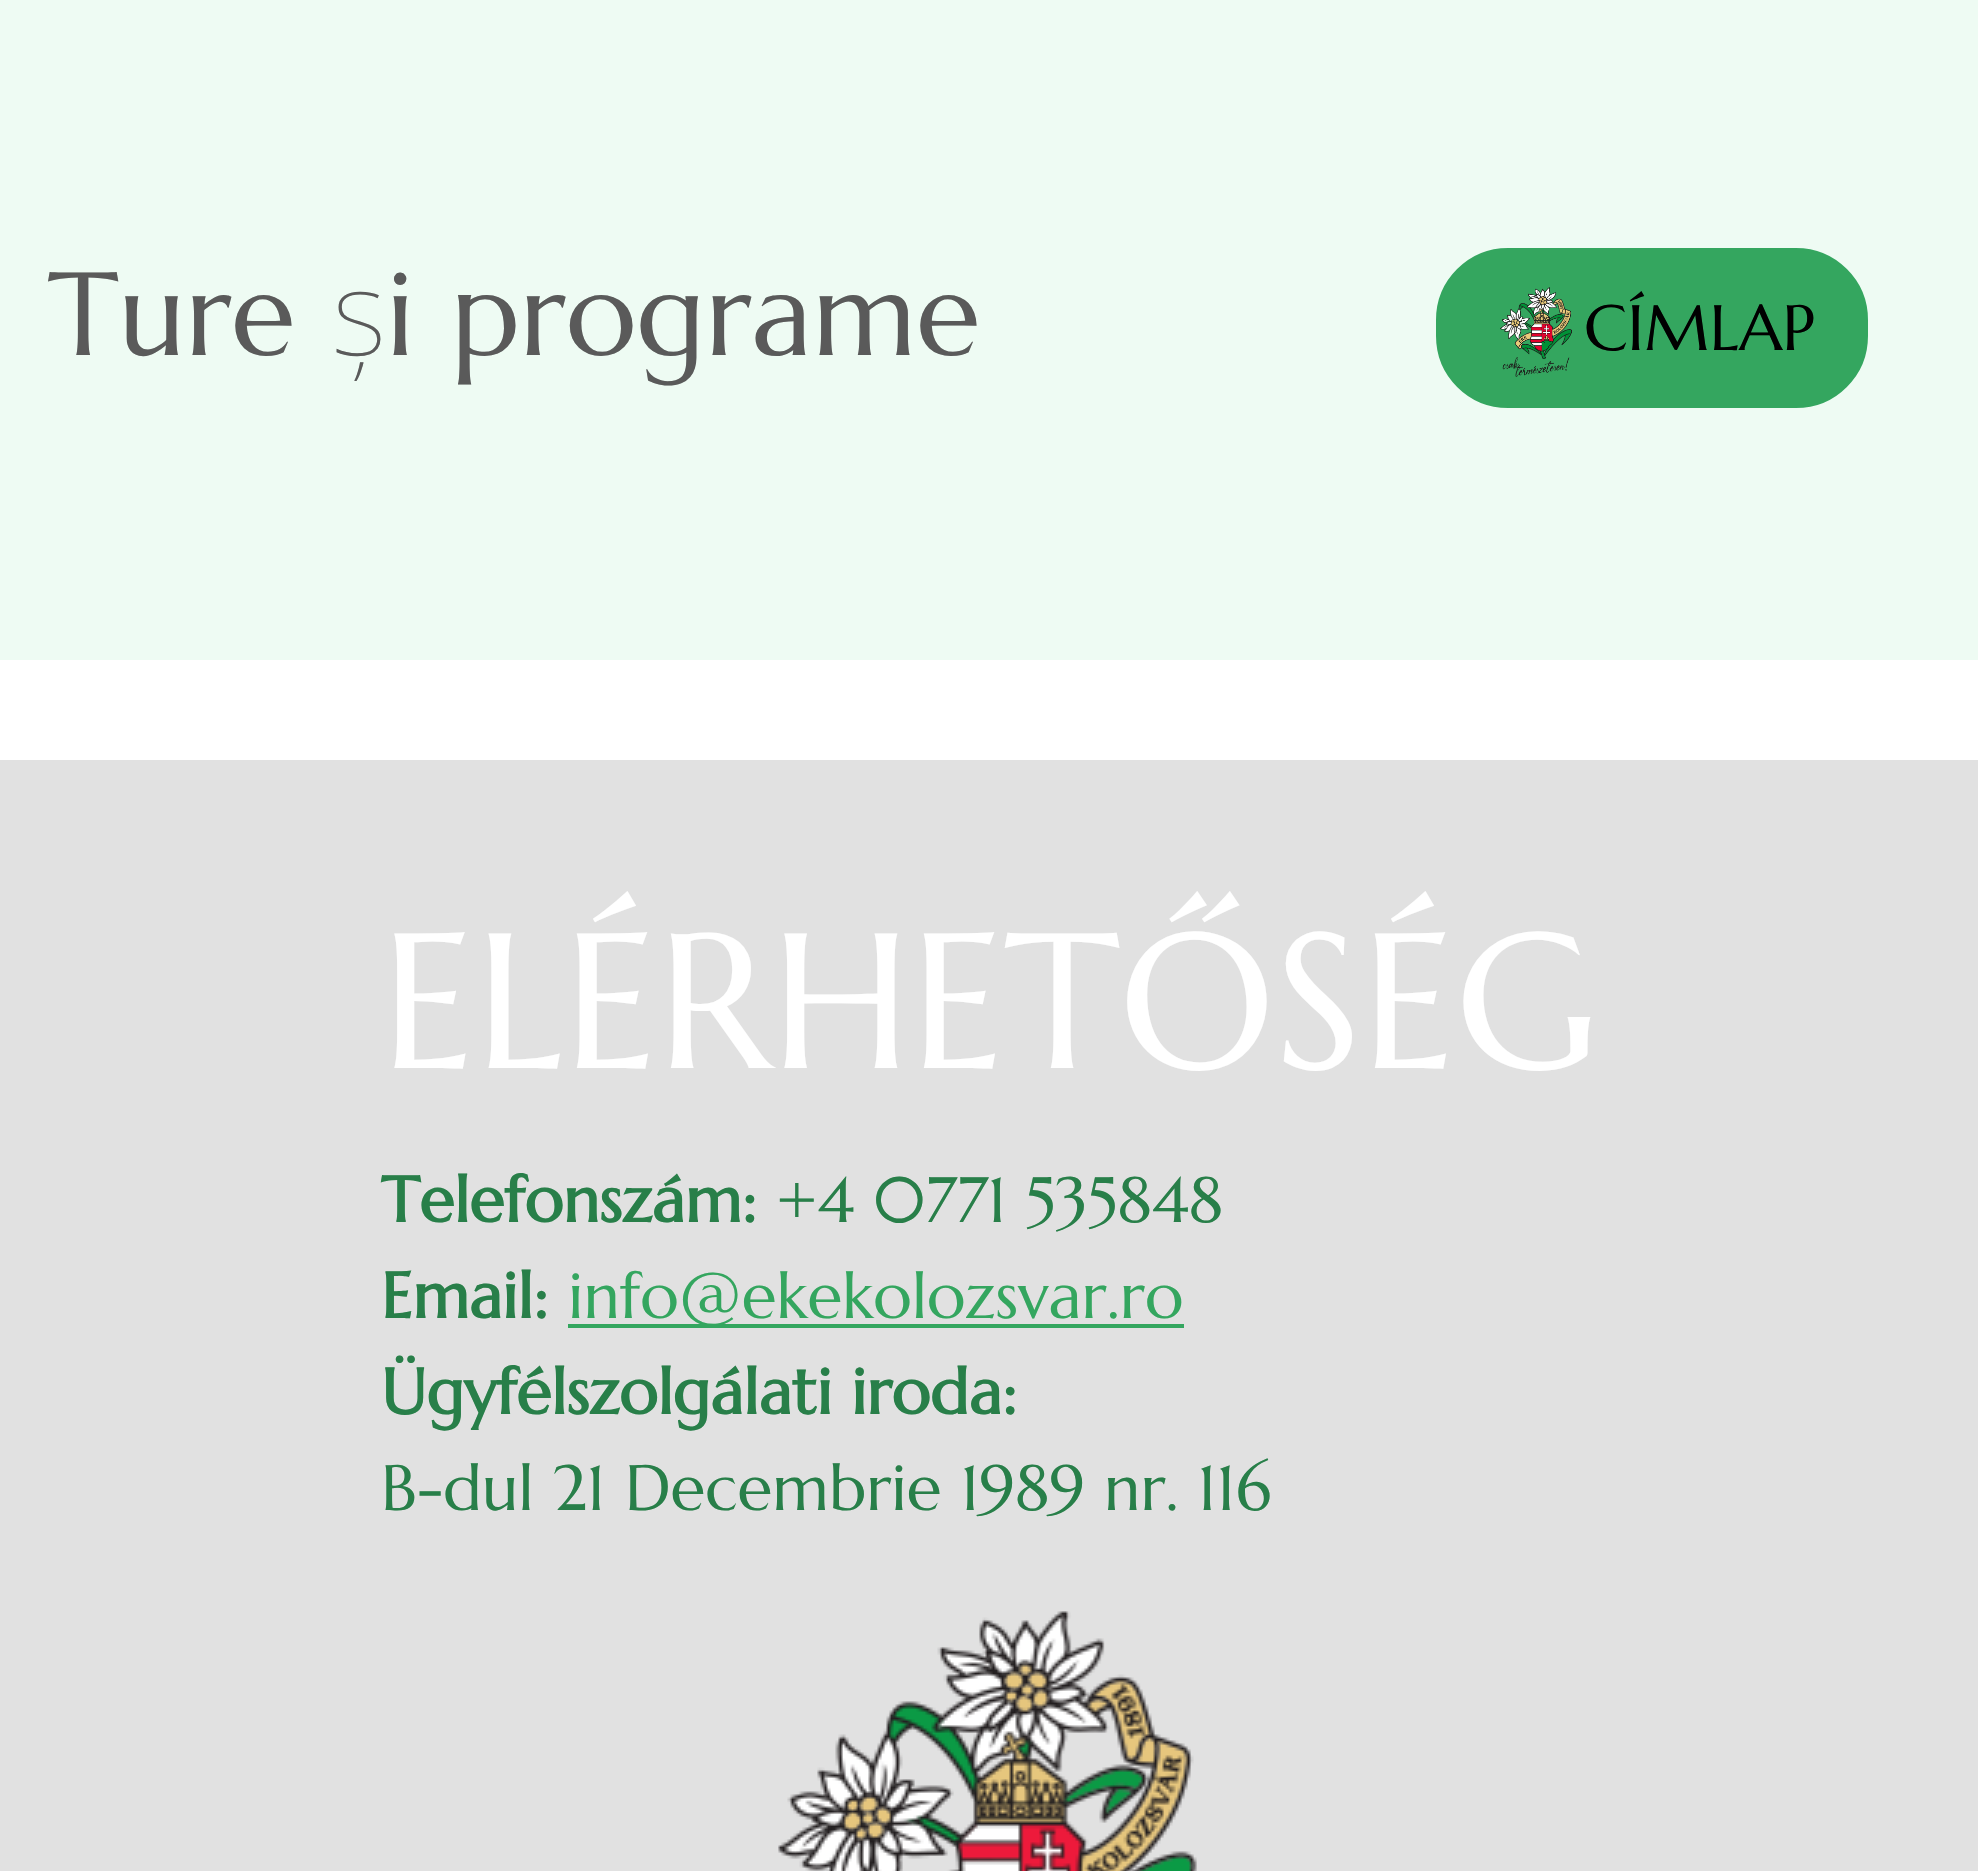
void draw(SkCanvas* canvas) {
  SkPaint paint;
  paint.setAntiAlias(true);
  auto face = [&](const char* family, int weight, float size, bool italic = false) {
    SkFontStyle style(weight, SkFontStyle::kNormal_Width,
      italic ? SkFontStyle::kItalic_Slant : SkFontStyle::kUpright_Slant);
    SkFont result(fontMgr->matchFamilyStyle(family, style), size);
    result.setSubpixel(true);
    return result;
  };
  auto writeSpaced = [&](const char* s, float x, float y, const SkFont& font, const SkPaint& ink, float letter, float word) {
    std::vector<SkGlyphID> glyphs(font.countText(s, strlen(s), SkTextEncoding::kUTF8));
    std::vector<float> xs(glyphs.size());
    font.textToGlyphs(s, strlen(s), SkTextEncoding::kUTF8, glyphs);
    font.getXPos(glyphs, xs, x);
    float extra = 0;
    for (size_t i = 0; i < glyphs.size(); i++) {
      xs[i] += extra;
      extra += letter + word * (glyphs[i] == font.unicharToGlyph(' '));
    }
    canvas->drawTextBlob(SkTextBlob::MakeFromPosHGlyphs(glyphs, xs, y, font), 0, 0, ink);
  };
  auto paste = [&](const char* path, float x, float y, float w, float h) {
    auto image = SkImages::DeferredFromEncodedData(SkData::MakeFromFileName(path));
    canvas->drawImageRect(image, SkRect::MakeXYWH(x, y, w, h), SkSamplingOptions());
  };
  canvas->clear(0xffffffff);
  paint.setColor(0xffeefbf3);
  canvas->drawRect(SkRect::MakeXYWH(0, 0, 1978, 660), paint);
  paint.setColor(0xff34a65f);
  canvas->drawRoundRect(SkRect::MakeXYWH(1438, 250, 428, 156), 70, 70, paint);
  paint.setStroke(true);
  paint.setStrokeWidth(4);
  canvas->drawRoundRect(SkRect::MakeXYWH(1438, 250, 428, 156), 70, 70, paint);
  paste("img/1.png", 1500, 287, 72, 90);
  paint.setStroke(false);
  paint.setColor(0xffe1e1e1);
  canvas->drawRect(SkRect::MakeXYWH(0, 760, 1978, 1111), paint);
  paint.setColor(0xff34a65f);
  canvas->drawRect(SkRect::MakeXYWH(568, 1324, 616, 4), paint);
  paste("img/2.png", 778, 1611, 419, 260);
  auto f0 = face("Marcellus", 400, 117.75f);
  paint.setColor(0xff5a5a5a);
  canvas->drawString("Ture", 48, 355, f0, paint);
  auto f1 = face("Noto Sans", 100, 117.75f);
  canvas->drawString("ș", 332, 355, f1, paint);
  writeSpaced("i programe", 386, 355, f0, paint, 0, 1);
  auto f2 = face("Marcellus", 400, 64);
  paint.setColor(0xff000000);
  canvas->drawString("CÍMLAP", 1584, 350, f2, paint);
  auto f3 = face("Marcellus", 400, 192);
  paint.setColor(0xffffffff);
  canvas->drawString("ELÉRHETŐSÉG", 381, 1068, f3, paint);
  auto f4 = face("Marcellus", 700, 64);
  paint.setColor(0xff287f49);
  canvas->drawString("Telefonszám:", 381, 1222, f4, paint);
  canvas->drawString("+4 0771 535848", 776, 1222, f2, paint);
  canvas->drawString("Email:", 381, 1318, f4, paint);
  paint.setColor(0xff34a65f);
  canvas->drawString("info@ekekolozsvar.ro", 568, 1318, f2, paint);
  paint.setColor(0xff287f49);
  canvas->drawString("Ügyfélszolgálati iroda:", 381, 1414, f4, paint);
  canvas->drawString("B-dul 21 Decembrie 1989 nr. 116", 381, 1510, f2, paint);
}
